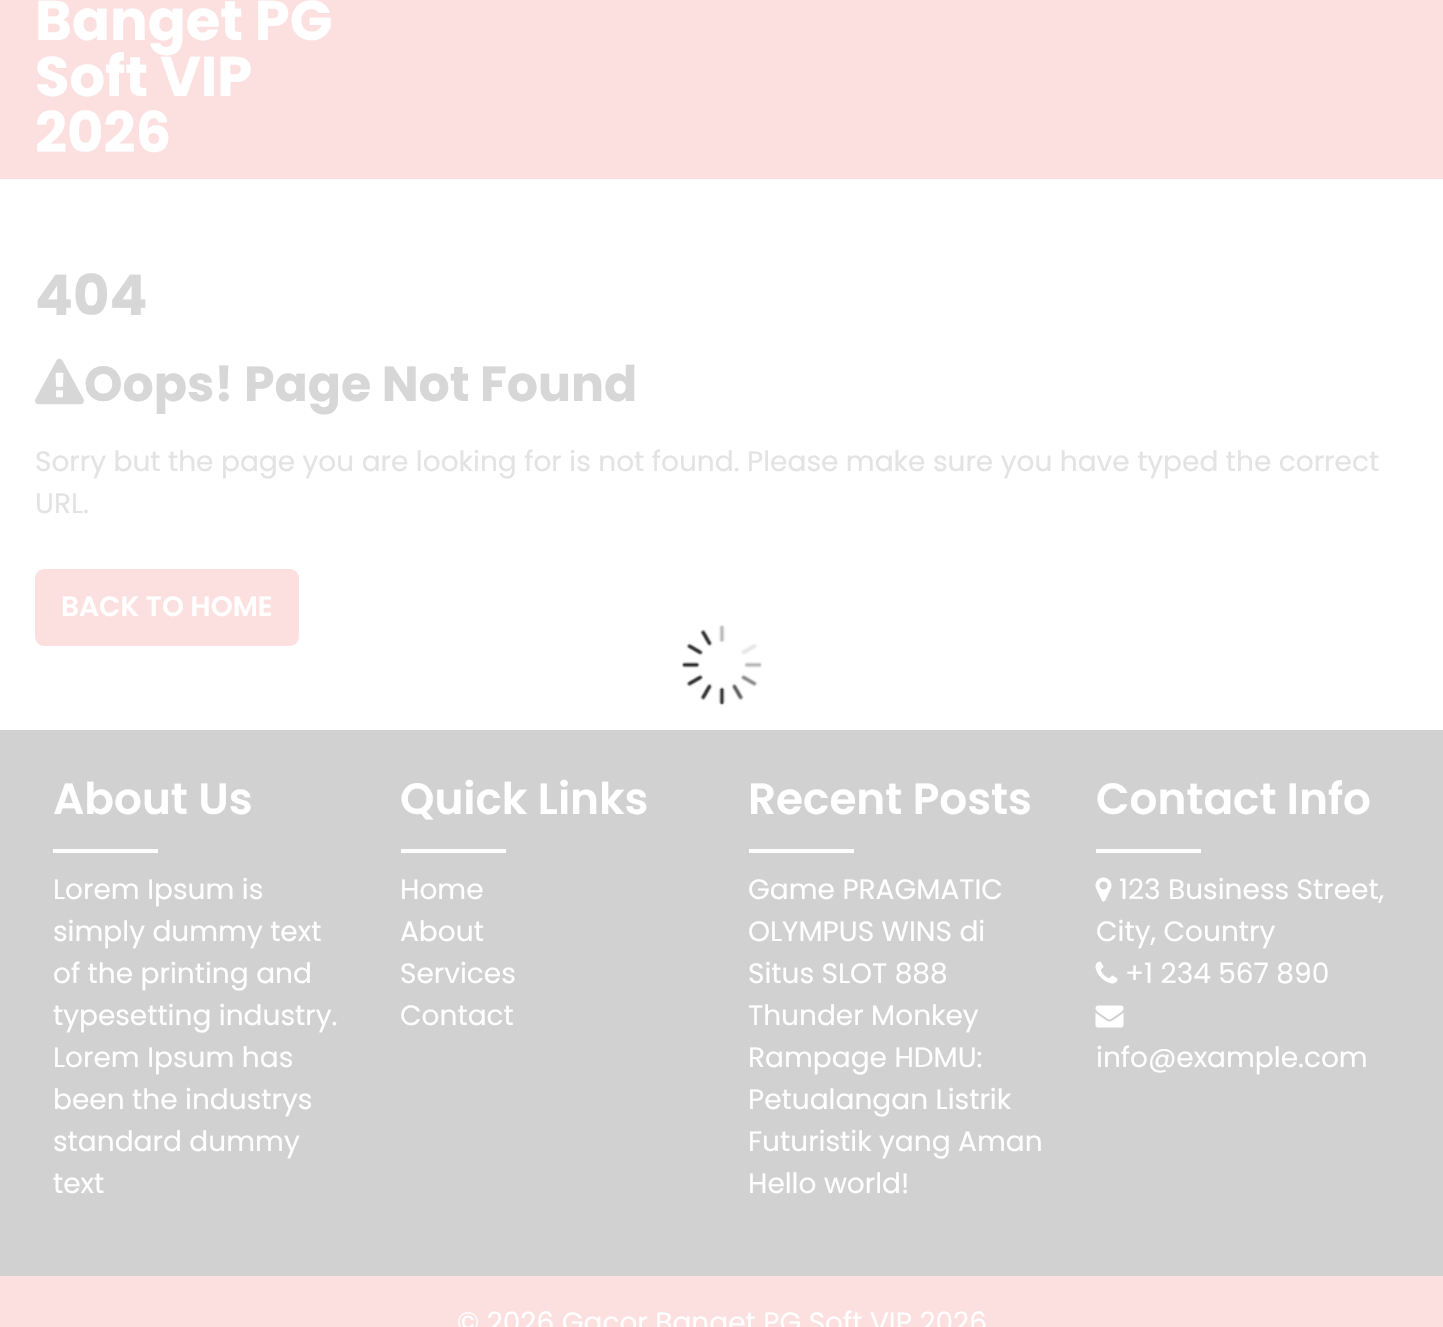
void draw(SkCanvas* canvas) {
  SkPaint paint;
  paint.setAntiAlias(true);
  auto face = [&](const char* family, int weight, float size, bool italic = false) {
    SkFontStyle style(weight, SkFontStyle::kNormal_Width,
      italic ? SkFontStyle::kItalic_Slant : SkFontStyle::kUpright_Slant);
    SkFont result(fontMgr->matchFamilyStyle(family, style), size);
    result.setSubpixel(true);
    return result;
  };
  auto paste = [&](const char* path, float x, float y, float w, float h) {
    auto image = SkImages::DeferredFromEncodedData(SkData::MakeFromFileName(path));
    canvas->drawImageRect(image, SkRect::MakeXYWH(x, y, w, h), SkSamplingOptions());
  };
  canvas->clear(0xffffffff);
  paint.setColor(0xfffce0e0);
  canvas->drawRect(SkRect::MakeXYWH(0, 0, 1443, 179), paint);
  paste("img/1.png", 35, 358, 49, 47);
  canvas->drawRoundRect(SkRect::MakeXYWH(35, 569, 264, 77), 9, 9, paint);
  {
    const struct { float x, y, w, h; SkColor color; } items[] = {
      {0, 1276, 1443, 51, 0xfffce0e0},
      {0, 730, 1443, 546, 0xffd1d1d1},
      {53, 849, 105, 4, 0xffffffff},
      {401, 849, 105, 4, 0xffffffff},
      {749, 849, 105, 4, 0xffffffff},
      {1096, 849, 105, 4, 0xffffffff},
    };
    for (auto [x, y, w, h, color] : items) {
      paint.setColor(color);
      canvas->drawRect(SkRect::MakeXYWH(x, y, w, h), paint);
    }
  }
  paste("img/2.png", 1095, 877, 17, 25);
  paste("img/3.png", 1095, 961, 23, 23);
  paste("img/4.png", 1095, 1005, 29, 23);
  paste("img/5.png", 681, 624, 81, 82);
  auto f0 = face("Poppins", 700, 56);
  {
    const struct { const char* s; float x, y; } items[] = {
      {"Banget PG", 35, 40},
      {"Soft VIP", 35, 96},
      {"2026", 35, 152},
    };
    for (auto [s, x, y] : items) {
      canvas->drawString(s, x, y, f0, paint);
    }
  }
  paint.setColor(0xffd7d7d7);
  canvas->drawString("404", 35, 315, f0, paint);
  auto f1 = face("Poppins", 700, 49);
  canvas->drawString("Oops! Page Not Found", 84, 401, f1, paint);
  auto f2 = face("Poppins", 400, 28);
  paint.setColor(0xffe3e3e3);
  canvas->drawString("Sorry but the page you are looking for is not found. Please make sure you have typed the correct", 35, 471, f2, paint);
  canvas->drawString("URL.", 35, 513, f2, paint);
  auto f3 = face("Poppins", 600, 28);
  paint.setColor(0xffffffff);
  canvas->drawString("BACK TO HOME", 61, 616, f3, paint);
  auto f4 = face("Poppins", 600, 43.75f);
  canvas->drawString("About Us", 53, 814, f4, paint);
  {
    const struct { const char* s; float x, y; } items[] = {
      {"Lorem Ipsum is", 53, 899},
      {"simply dummy text", 53, 941},
      {"of the printing and", 53, 983},
      {"typesetting industry.", 53, 1025},
      {"Lorem Ipsum has", 53, 1067},
      {"been the industrys", 53, 1109},
      {"standard dummy", 53, 1151},
      {"text", 53, 1193},
    };
    for (auto [s, x, y] : items) {
      canvas->drawString(s, x, y, f2, paint);
    }
  }
  canvas->drawString("Quick Links", 400, 814, f4, paint);
  {
    const struct { const char* s; float x, y; } items[] = {
      {"Home", 400, 899},
      {"About", 400, 941},
      {"Services", 400, 983},
      {"Contact", 400, 1025},
    };
    for (auto [s, x, y] : items) {
      canvas->drawString(s, x, y, f2, paint);
    }
  }
  canvas->drawString("Recent Posts", 748, 814, f4, paint);
  {
    const struct { const char* s; float x, y; } items[] = {
      {"Game PRAGMATIC", 748, 899},
      {"OLYMPUS WINS di", 748, 941},
      {"Situs SLOT 888", 748, 983},
      {"Thunder Monkey", 748, 1025},
      {"Rampage HDMU:", 748, 1067},
      {"Petualangan Listrik", 748, 1109},
      {"Futuristik yang Aman", 748, 1151},
      {"Hello world!", 748, 1193},
    };
    for (auto [s, x, y] : items) {
      canvas->drawString(s, x, y, f2, paint);
    }
  }
  canvas->drawString("Contact Info", 1096, 814, f4, paint);
  {
    const struct { const char* s; float x, y; } items[] = {
      {"123 Business Street,", 1119, 899},
      {"City, Country", 1096, 941},
      {"+1 234 567 890", 1125, 983},
      {"info@example.com", 1096, 1067},
      {"© 2026 Gacor Banget PG Soft VIP 2026", 457, 1332},
    };
    for (auto [s, x, y] : items) {
      canvas->drawString(s, x, y, f2, paint);
    }
  }
}
